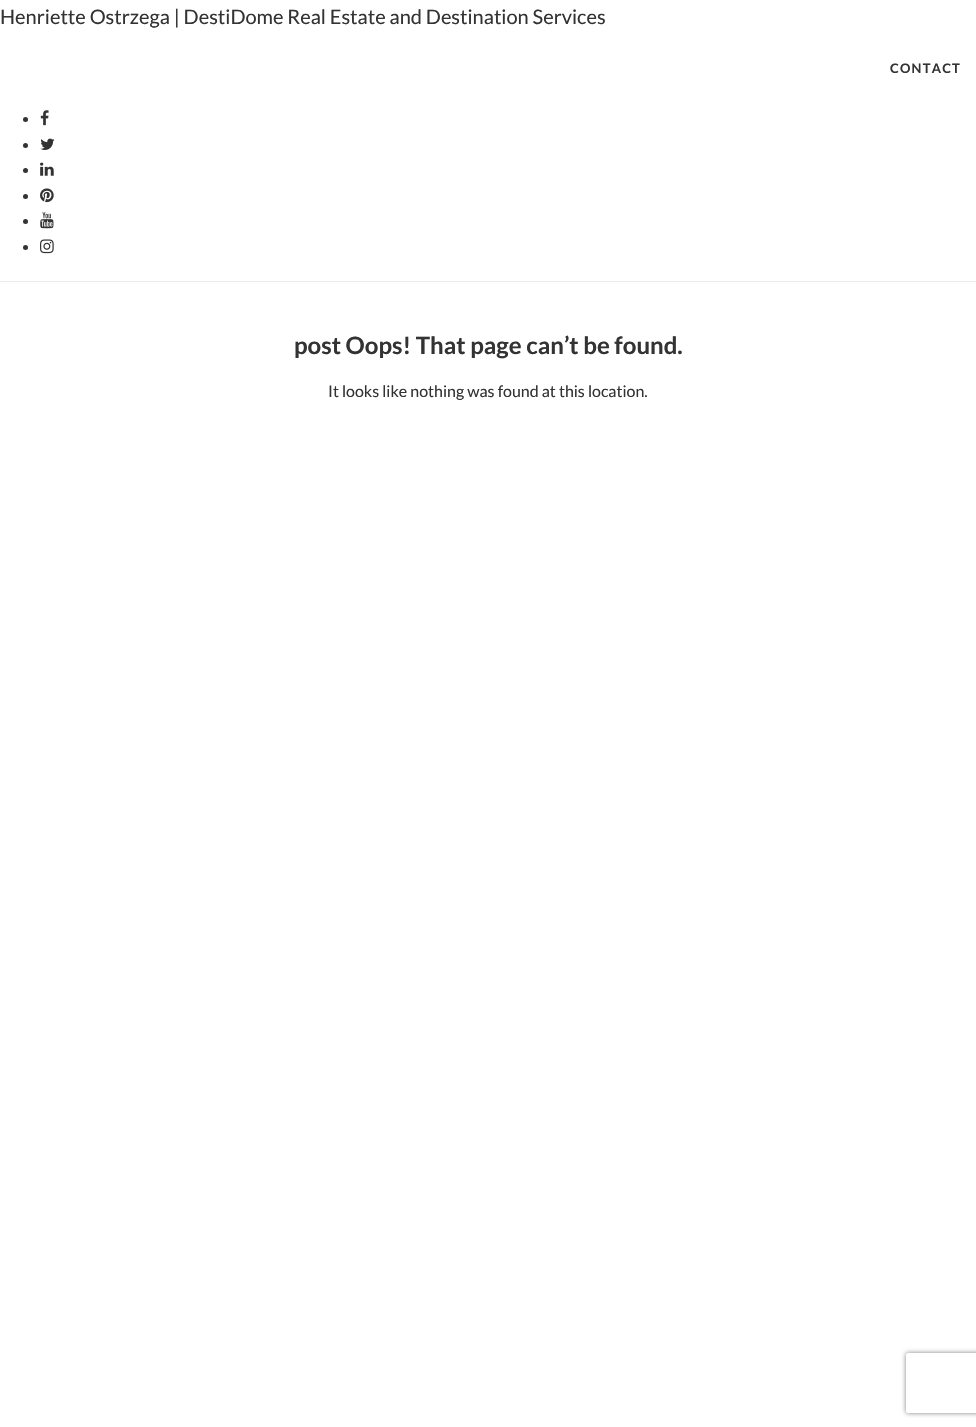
void draw(SkCanvas* canvas) {
  SkPaint paint;
  paint.setAntiAlias(true);
  auto face = [&](const char* family, int weight, float size, bool italic = false) {
    SkFontStyle style(weight, SkFontStyle::kNormal_Width,
      italic ? SkFontStyle::kItalic_Slant : SkFontStyle::kUpright_Slant);
    SkFont result(fontMgr->matchFamilyStyle(family, style), size);
    result.setSubpixel(true);
    return result;
  };
  auto writeSpaced = [&](const char* s, float x, float y, const SkFont& font, const SkPaint& ink, float letter, float word) {
    std::vector<SkGlyphID> glyphs(font.countText(s, strlen(s), SkTextEncoding::kUTF8));
    std::vector<float> xs(glyphs.size());
    font.textToGlyphs(s, strlen(s), SkTextEncoding::kUTF8, glyphs);
    font.getXPos(glyphs, xs, x);
    float extra = 0;
    for (size_t i = 0; i < glyphs.size(); i++) {
      xs[i] += extra;
      extra += letter + word * (glyphs[i] == font.unicharToGlyph(' '));
    }
    canvas->drawTextBlob(SkTextBlob::MakeFromPosHGlyphs(glyphs, xs, y, font), 0, 0, ink);
  };
  auto paste = [&](const char* path, float x, float y, float w, float h) {
    auto image = SkImages::DeferredFromEncodedData(SkData::MakeFromFileName(path));
    canvas->drawImageRect(image, SkRect::MakeXYWH(x, y, w, h), SkSamplingOptions());
  };
  auto shape = [&](const char* data, bool evenOdd = false) {
    SkPath result = *SkParsePath::FromSVGString(data);
    if (evenOdd) result.setFillType(SkPathFillType::kEvenOdd);
    return result;
  };
  canvas->clear(0xffffffff);
  paint.setColor(0xffebebeb);
  canvas->drawRect(SkRect::MakeXYWH(0, 281, 976, 1), paint);
  paint.setColor(0xff333333);
  canvas->drawCircle(25.5f, 119.5f, 2.5f, paint);
  paste("img/1.png", 40, 110, 9, 16);
  canvas->drawCircle(25.5f, 145.5f, 2.5f, paint);
  paste("img/2.png", 40, 138, 15, 12);
  canvas->drawCircle(25.5f, 170.5f, 2.5f, paint);
  paste("img/3.png", 40, 162, 14, 14);
  canvas->drawCircle(25.5f, 196.5f, 2.5f, paint);
  paste("img/4.png", 40, 188, 14, 15);
  canvas->drawCircle(25.5f, 221.5f, 2.5f, paint);
  paste("img/5.png", 40, 212, 14, 17);
  canvas->drawCircle(25.5f, 247.5f, 2.5f, paint);
  paste("img/6.png", 40, 239, 14, 15);
  canvas->save();
  canvas->clipPath(shape("M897 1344H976V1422H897ZM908 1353H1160C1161 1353 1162 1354 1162 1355V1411C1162 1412 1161 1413 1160 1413H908C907 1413 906 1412 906 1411V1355C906 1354 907 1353 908 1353Z", true), true);
  paint.setColor(0xff808080);
  paint.setMaskFilter(SkMaskFilter::MakeBlur(kNormal_SkBlurStyle, 2.5f));
  canvas->drawRoundRect(SkRect::MakeXYWH(906, 1353, 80, 60), 2, 2, paint);
  paint.setMaskFilter(nullptr);
  canvas->restore();
  auto f0 = face("Lato", 400, 20);
  paint.setColor(0xff333333);
  canvas->drawString("Henriette Ostrzega | DestiDome Real Estate and Destination Services", 0, 24, f0, paint);
  auto f1 = face("Lato", 700, 13);
  writeSpaced("CONTACT", 890, 73, f1, paint, 1.25f, 0);
  auto f2 = face("Lato", 700, 24);
  canvas->drawString("post Oops! That page can’t be found.", 294, 354, f2, paint);
  auto f3 = face("Lato", 400, 16);
  canvas->drawString("It looks like nothing was found at this location.", 328, 397, f3, paint);
}
